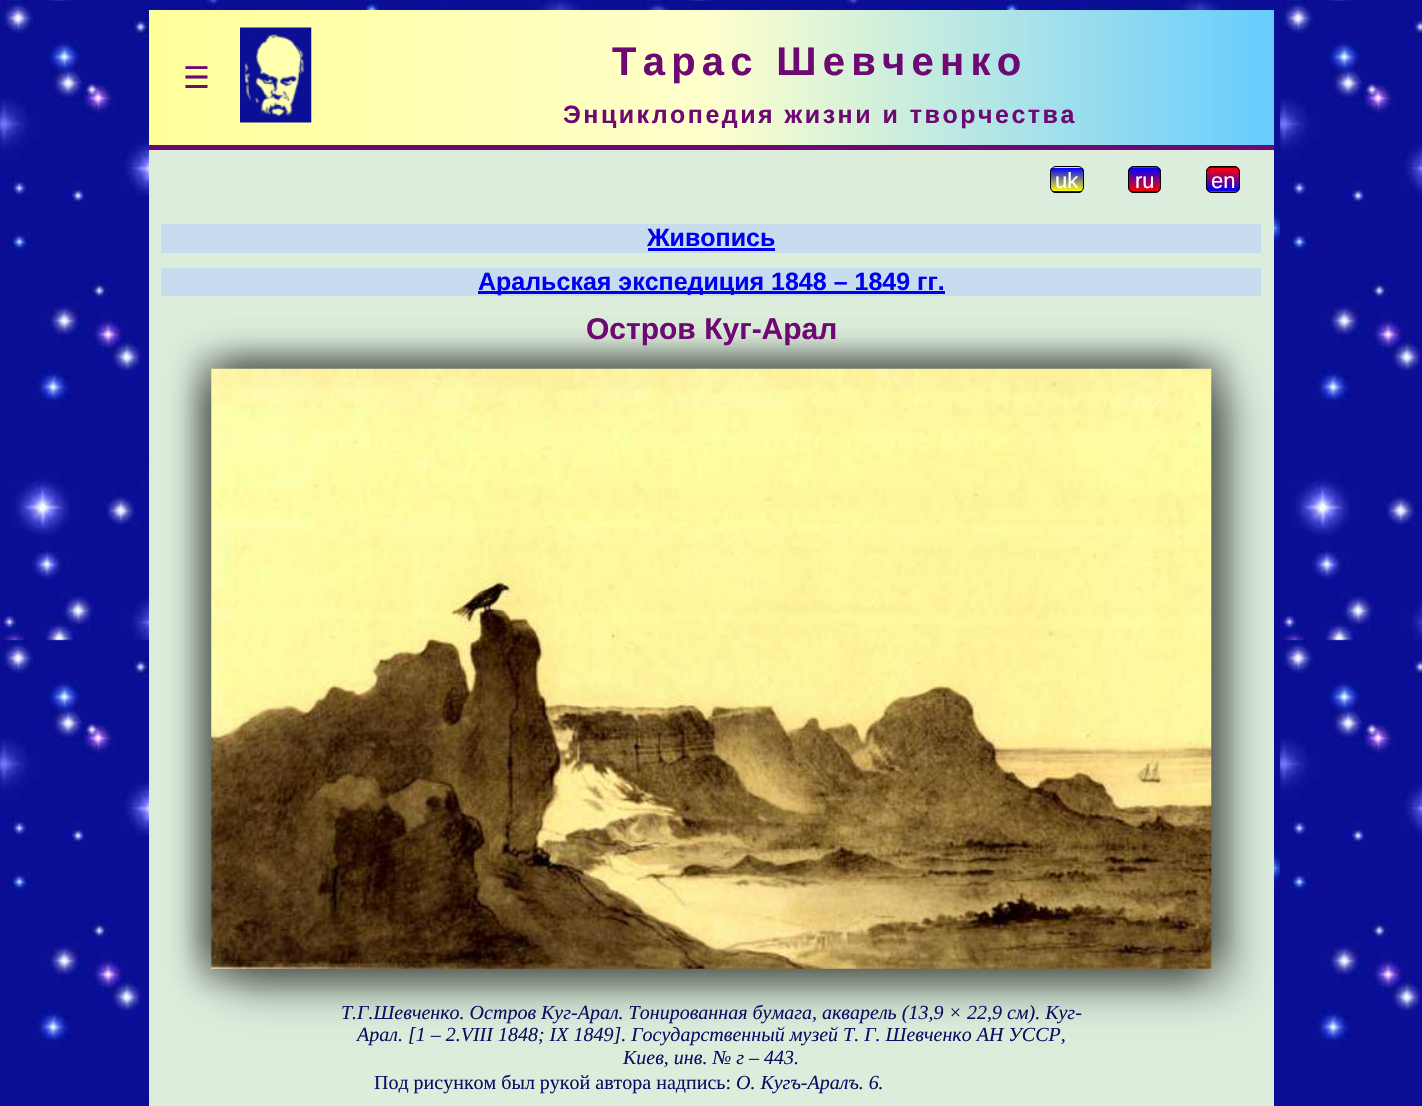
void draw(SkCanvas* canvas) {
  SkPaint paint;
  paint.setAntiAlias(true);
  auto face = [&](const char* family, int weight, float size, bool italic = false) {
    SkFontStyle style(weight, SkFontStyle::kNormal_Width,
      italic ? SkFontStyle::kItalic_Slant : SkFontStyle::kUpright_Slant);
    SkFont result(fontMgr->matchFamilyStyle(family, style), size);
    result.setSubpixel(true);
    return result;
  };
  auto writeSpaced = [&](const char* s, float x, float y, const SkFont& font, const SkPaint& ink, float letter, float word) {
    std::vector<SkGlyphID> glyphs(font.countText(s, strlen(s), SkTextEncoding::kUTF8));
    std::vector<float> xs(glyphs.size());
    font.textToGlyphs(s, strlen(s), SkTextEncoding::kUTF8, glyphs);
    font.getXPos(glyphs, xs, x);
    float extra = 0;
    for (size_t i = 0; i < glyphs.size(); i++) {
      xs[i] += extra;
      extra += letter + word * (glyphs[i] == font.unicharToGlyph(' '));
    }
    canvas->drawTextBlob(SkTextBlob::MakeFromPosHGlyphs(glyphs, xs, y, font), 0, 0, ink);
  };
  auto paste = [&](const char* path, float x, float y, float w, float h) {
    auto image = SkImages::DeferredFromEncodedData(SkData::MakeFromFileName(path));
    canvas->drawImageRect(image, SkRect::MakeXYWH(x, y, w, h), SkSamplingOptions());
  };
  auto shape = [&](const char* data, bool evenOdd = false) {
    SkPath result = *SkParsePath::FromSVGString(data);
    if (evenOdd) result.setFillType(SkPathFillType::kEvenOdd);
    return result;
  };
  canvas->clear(0xffffffff);
  paste("img/1.png", 0, 0, 1422, 1106);
  {
    const SkColor colors[] = {0xffffff99, 0xffffffcc, 0xff66ccff};
    const float stops[] = {0, 0.5f, 1};
    const SkPoint ends[] = {{149, 78}, {1274, 77}};
    paint.setShader(SkGradientShader::MakeLinear(ends, colors, stops, 3, SkTileMode::kClamp));
    paint.setAlpha(255);
  }
  canvas->drawRect(SkRect::MakeXYWH(149, 10, 1125, 135), paint);
  paint.setShader(nullptr);
  paint.setColor(0xff6e0973);
  canvas->drawRect(SkRect::MakeXYWH(149, 145, 1125, 5), paint);
  paste("img/2.png", 240, 27, 72, 96);
  paint.setColor(0xffdceddc);
  canvas->drawRect(SkRect::MakeXYWH(149, 150, 1125, 956), paint);
  canvas->save();
  canvas->clipPath(shape("M1056 166H1078C1081.5 166 1084 168.5 1084 172V187C1084 190.5 1081.5 193 1078 193H1056C1052.5 193 1050 190.5 1050 187V172C1050 168.5 1052.5 166 1056 166Z"), true);
  {
    const SkColor colors[] = {0xff0000ff, 0xffffff00};
    const float stops[] = {0, 1};
    const SkPoint ends[] = {{1067, 144}, {1067, 168}};
    paint.setShader(SkGradientShader::MakeLinear(ends, colors, stops, 2, SkTileMode::kClamp));
    paint.setAlpha(255);
  }
  canvas->drawRect(SkRect::MakeXYWH(1050, 166, 34, 2), paint);
  {
    const SkColor colors[] = {0xff0000ff, 0xffffff00};
    const float stops[] = {0, 1};
    const SkPoint ends[] = {{1067, 168}, {1067, 191}};
    paint.setShader(SkGradientShader::MakeLinear(ends, colors, stops, 2, SkTileMode::kClamp));
    paint.setAlpha(255);
  }
  canvas->drawRect(SkRect::MakeXYWH(1050, 168, 34, 23), paint);
  {
    const SkColor colors[] = {0xff0000ff, 0xffffff00};
    const float stops[] = {0, 1};
    const SkPoint ends[] = {{1067, 191}, {1067, 215}};
    paint.setShader(SkGradientShader::MakeLinear(ends, colors, stops, 2, SkTileMode::kClamp));
    paint.setAlpha(255);
  }
  canvas->drawRect(SkRect::MakeXYWH(1050, 191, 34, 2), paint);
  canvas->restore();
  paint.setStroke(true);
  paint.setStrokeWidth(1);
  paint.setShader(nullptr);
  paint.setColor(0xff000000);
  canvas->drawRoundRect(SkRect::MakeXYWH(1050.5f, 166.5f, 33, 26), 5.5f, 5.5f, paint);
  canvas->save();
  canvas->clipPath(shape("M1134 166H1155C1158.5 166 1161 168.5 1161 172V187C1161 190.5 1158.5 193 1155 193H1134C1130.5 193 1128 190.5 1128 187V172C1128 168.5 1130.5 166 1134 166Z"), true);
  paint.setStroke(false);
  {
    const SkColor colors[] = {0xff0000ff, 0xffff0000};
    const float stops[] = {0, 1};
    const SkPoint ends[] = {{1144, 144}, {1144, 168}};
    paint.setShader(SkGradientShader::MakeLinear(ends, colors, stops, 2, SkTileMode::kClamp));
    paint.setAlpha(255);
  }
  canvas->drawRect(SkRect::MakeXYWH(1128, 166, 33, 2), paint);
  {
    const SkColor colors[] = {0xff0000ff, 0xffff0000};
    const float stops[] = {0, 1};
    const SkPoint ends[] = {{1144, 168}, {1144, 191}};
    paint.setShader(SkGradientShader::MakeLinear(ends, colors, stops, 2, SkTileMode::kClamp));
    paint.setAlpha(255);
  }
  canvas->drawRect(SkRect::MakeXYWH(1128, 168, 33, 23), paint);
  {
    const SkColor colors[] = {0xff0000ff, 0xffff0000};
    const float stops[] = {0, 1};
    const SkPoint ends[] = {{1144, 191}, {1144, 215}};
    paint.setShader(SkGradientShader::MakeLinear(ends, colors, stops, 2, SkTileMode::kClamp));
    paint.setAlpha(255);
  }
  canvas->drawRect(SkRect::MakeXYWH(1128, 191, 33, 2), paint);
  canvas->restore();
  paint.setStroke(true);
  paint.setShader(nullptr);
  paint.setColor(0xff000000);
  canvas->drawRoundRect(SkRect::MakeXYWH(1128.5f, 166.5f, 32, 26), 5.5f, 5.5f, paint);
  canvas->save();
  canvas->clipPath(shape("M1212 166H1234C1237.5 166 1240 168.5 1240 172V187C1240 190.5 1237.5 193 1234 193H1212C1208.5 193 1206 190.5 1206 187V172C1206 168.5 1208.5 166 1212 166Z"), true);
  paint.setStroke(false);
  {
    const SkColor colors[] = {0xffff0000, 0xff0000ff};
    const float stops[] = {0, 1};
    const SkPoint ends[] = {{1223, 144}, {1223, 168}};
    paint.setShader(SkGradientShader::MakeLinear(ends, colors, stops, 2, SkTileMode::kClamp));
    paint.setAlpha(255);
  }
  canvas->drawRect(SkRect::MakeXYWH(1206, 166, 34, 2), paint);
  {
    const SkColor colors[] = {0xffff0000, 0xff0000ff};
    const float stops[] = {0, 1};
    const SkPoint ends[] = {{1223, 168}, {1223, 191}};
    paint.setShader(SkGradientShader::MakeLinear(ends, colors, stops, 2, SkTileMode::kClamp));
    paint.setAlpha(255);
  }
  canvas->drawRect(SkRect::MakeXYWH(1206, 168, 34, 23), paint);
  {
    const SkColor colors[] = {0xffff0000, 0xff0000ff};
    const float stops[] = {0, 1};
    const SkPoint ends[] = {{1223, 191}, {1223, 215}};
    paint.setShader(SkGradientShader::MakeLinear(ends, colors, stops, 2, SkTileMode::kClamp));
    paint.setAlpha(255);
  }
  canvas->drawRect(SkRect::MakeXYWH(1206, 191, 34, 2), paint);
  canvas->restore();
  paint.setStroke(true);
  paint.setShader(nullptr);
  paint.setColor(0xff000000);
  canvas->drawRoundRect(SkRect::MakeXYWH(1206.5f, 166.5f, 33, 26), 5.5f, 5.5f, paint);
  paint.setStroke(false);
  {
    const struct { float x, y, w, h; SkColor color; } items[] = {
      {161, 224, 1100, 29, 0xffc8dcf0},
      {648, 248, 127, 3, 0xff0000ee},
      {161, 268, 1100, 28, 0xffc8dcf0},
      {478, 291, 467, 3, 0xff0000ee},
    };
    for (auto [x, y, w, h, color] : items) {
      paint.setColor(color);
      canvas->drawRect(SkRect::MakeXYWH(x, y, w, h), paint);
    }
  }
  paint.setColor(0x66000000);
  paint.setMaskFilter(SkMaskFilter::MakeBlur(kNormal_SkBlurStyle, 20));
  canvas->drawRect(SkRect::MakeXYWH(231, 389, 1000, 600), paint);
  paint.setMaskFilter(nullptr);
  paint.setColor(0x4d000000);
  paint.setMaskFilter(SkMaskFilter::MakeBlur(kNormal_SkBlurStyle, 12.5f));
  canvas->drawRect(SkRect::MakeXYWH(226, 354, 1000, 600), paint);
  paint.setMaskFilter(nullptr);
  paint.setMaskFilter(SkMaskFilter::MakeBlur(kNormal_SkBlurStyle, 12.5f));
  canvas->drawRect(SkRect::MakeXYWH(196, 384, 1000, 600), paint);
  paint.setMaskFilter(nullptr);
  paint.setMaskFilter(SkMaskFilter::MakeBlur(kNormal_SkBlurStyle, 12.5f));
  canvas->drawRect(SkRect::MakeXYWH(196, 354, 1000, 600), paint);
  paint.setMaskFilter(nullptr);
  paste("img/3.png", 211, 368, 1001, 601);
  auto f0 = face("DejaVu Sans", 400, 30);
  paint.setColor(0xff6e0973);
  canvas->drawString("☰", 183, 88, f0, paint);
  auto f1 = face("Liberation Sans", 700, 40);
  writeSpaced("Тарас Шевченко", 612, 75, f1, paint, 6.25f, 0);
  auto f2 = face("Liberation Sans", 700, 25);
  writeSpaced("Энциклопедия жизни и творчества", 563, 123, f2, paint, 2.5f, 0);
  auto f3 = face("Liberation Sans", 400, 22);
  paint.setColor(0xffffffff);
  {
    const struct { const char* s; float x, y; } items[] = {
      {"uk", 1055, 188},
      {"ru", 1135, 188},
      {"en", 1211, 188},
    };
    for (auto [s, x, y] : items) {
      canvas->drawString(s, x, y, f3, paint);
    }
  }
  paint.setColor(0xff0000ee);
  canvas->drawString("Живопись", 647, 246, f2, paint);
  canvas->drawString("Аральская экспедиция 1848 – 1849 гг.", 478, 290, f2, paint);
  auto f4 = face("Liberation Sans", 700, 30);
  paint.setColor(0xff6e0973);
  canvas->drawString("Остров Куг-Арал", 586, 339, f4, paint);
  auto f5 = face("Liberation Serif", 400, 20, true);
  paint.setColor(0xff0b0f64);
  {
    const struct { const char* s; float x, y; } items[] = {
      {"Т.Г.Шевченко. Остров Куг-Арал. Тонированная бумага, акварель (13,9 × 22,9 см). Куг-", 341, 1019},
      {"Арал. [1 – 2.VIII 1848; IX 1849]. Государственный музей Т. Г. Шевченко АН УССР,", 357, 1041},
      {"Киев, инв. № г – 443.", 623, 1064},
    };
    for (auto [s, x, y] : items) {
      canvas->drawString(s, x, y, f5, paint);
    }
  }
  auto f6 = face("Liberation Serif", 400, 20);
  canvas->drawString("Под рисунком был рукой автора надпись:", 374, 1089, f6, paint);
  canvas->drawString("О. Кугъ-Аралъ. 6", 736, 1089, f5, paint);
  canvas->drawString(".", 878, 1089, f6, paint);
}
